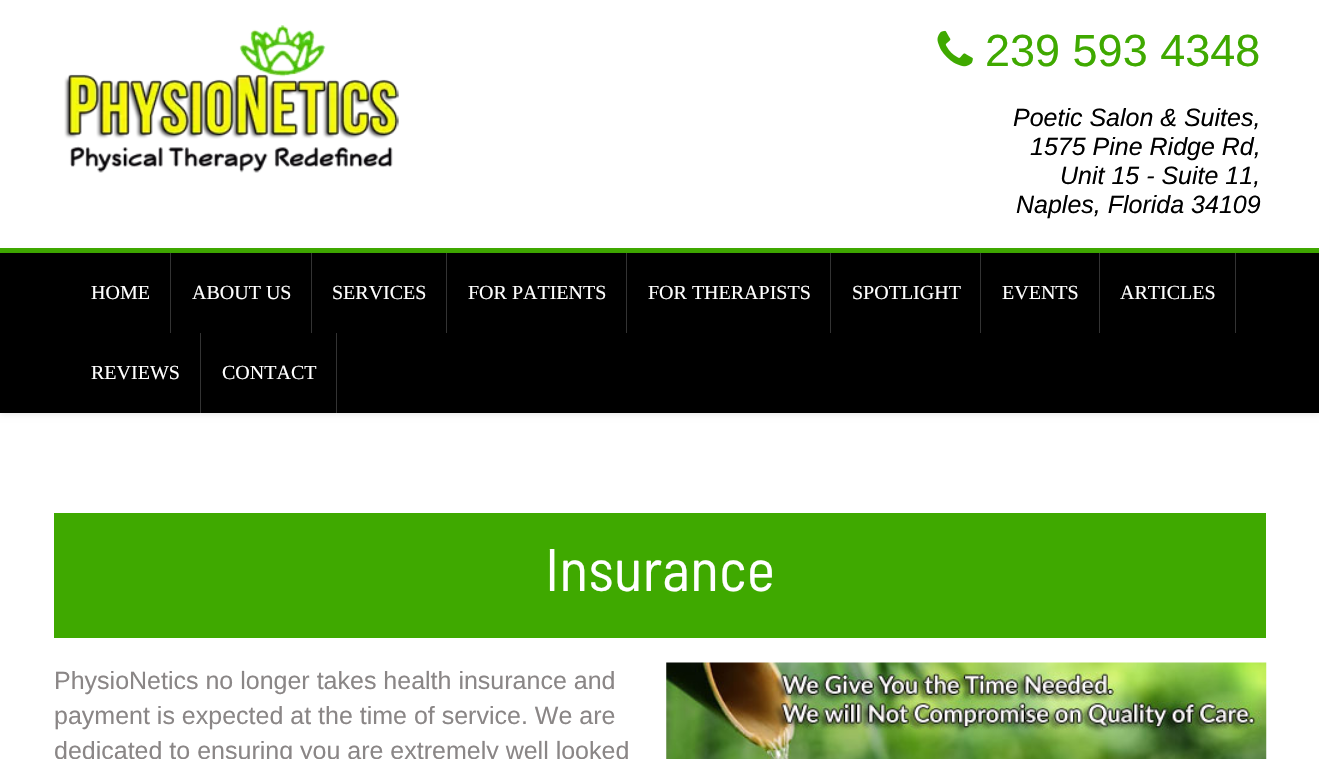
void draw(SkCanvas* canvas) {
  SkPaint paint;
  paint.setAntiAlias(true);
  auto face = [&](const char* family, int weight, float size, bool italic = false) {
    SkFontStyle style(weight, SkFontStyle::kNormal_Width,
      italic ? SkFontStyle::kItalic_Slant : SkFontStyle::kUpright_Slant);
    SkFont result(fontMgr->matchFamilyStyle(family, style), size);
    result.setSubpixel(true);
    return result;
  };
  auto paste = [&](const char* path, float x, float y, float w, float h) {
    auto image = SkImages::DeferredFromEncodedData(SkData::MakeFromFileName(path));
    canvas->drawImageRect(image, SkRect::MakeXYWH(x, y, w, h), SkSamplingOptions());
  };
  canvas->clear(0xffffffff);
  paste("img/1.png", 64, 25, 335, 148);
  paste("img/2.png", 937, 30, 36, 37);
  paint.setColor(0xff3fa900);
  canvas->drawRect(SkRect::MakeXYWH(0, 248, 1319, 5), paint);
  paint.setColor(0x1a000000);
  paint.setMaskFilter(SkMaskFilter::MakeBlur(kNormal_SkBlurStyle, 3));
  canvas->drawRect(SkRect::MakeXYWH(0, 254, 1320, 160), paint);
  paint.setMaskFilter(nullptr);
  {
    const struct { float x, y, w, h; SkColor color; } items[] = {
      {0, 253, 1319, 160, 0xff000000},
      {170, 253, 1, 80, 0xff333333},
      {311, 253, 1, 80, 0xff333333},
      {446, 253, 1, 80, 0xff333333},
      {626, 253, 1, 80, 0xff333333},
      {830, 253, 1, 80, 0xff333333},
      {980, 253, 1, 80, 0xff333333},
      {1099, 253, 1, 80, 0xff333333},
      {1235, 253, 1, 80, 0xff333333},
      {200, 333, 1, 80, 0xff333333},
      {336, 333, 1, 80, 0xff333333},
      {54, 513, 1212, 125, 0xff3fa900},
    };
    for (auto [x, y, w, h, color] : items) {
      paint.setColor(color);
      canvas->drawRect(SkRect::MakeXYWH(x, y, w, h), paint);
    }
  }
  paste("img/3.png", 666, 662, 601, 97);
  auto f0 = face("Liberation Sans", 400, 45);
  canvas->drawString("239 593 4348", 985, 66, f0, paint);
  auto f1 = face("Liberation Sans", 400, 25, true);
  paint.setColor(0xff000000);
  {
    const struct { const char* s; float x, y; } items[] = {
      {"Poetic Salon & Suites,", 1013, 126},
      {"1575 Pine Ridge Rd,", 1030, 155},
      {"Unit 15 - Suite 11,", 1060, 184},
      {"Naples, Florida 34109", 1016, 213},
    };
    for (auto [s, x, y] : items) {
      canvas->drawString(s, x, y, f1, paint);
    }
  }
  auto f2 = face("Liberation Serif", 400, 20);
  paint.setColor(0xffffffff);
  {
    const struct { const char* s; float x, y; } items[] = {
      {"HOME", 91, 299},
      {"ABOUT US", 192, 299},
      {"SERVICES", 332, 299},
      {"FOR PATIENTS", 468, 299},
      {"FOR THERAPISTS", 648, 299},
      {"SPOTLIGHT", 852, 299},
      {"EVENTS", 1002, 299},
      {"ARTICLES", 1120, 299},
      {"REVIEWS", 91, 379},
      {"CONTACT", 222, 379},
    };
    for (auto [s, x, y] : items) {
      canvas->drawString(s, x, y, f2, paint);
    }
  }
  auto f3 = face("Barlow Semi Condensed", 400, 60);
  canvas->drawString("Insurance", 545, 591, f3, paint);
  auto f4 = face("Liberation Sans", 400, 25);
  paint.setColor(0xff8a8686);
  {
    const struct { const char* s; float x, y; } items[] = {
      {"PhysioNetics no longer takes health insurance and", 54, 689},
      {"payment is expected at the time of service. We are", 54, 724},
      {"dedicated to ensuring you are extremely well looked", 54, 759},
    };
    for (auto [s, x, y] : items) {
      canvas->drawString(s, x, y, f4, paint);
    }
  }
}
